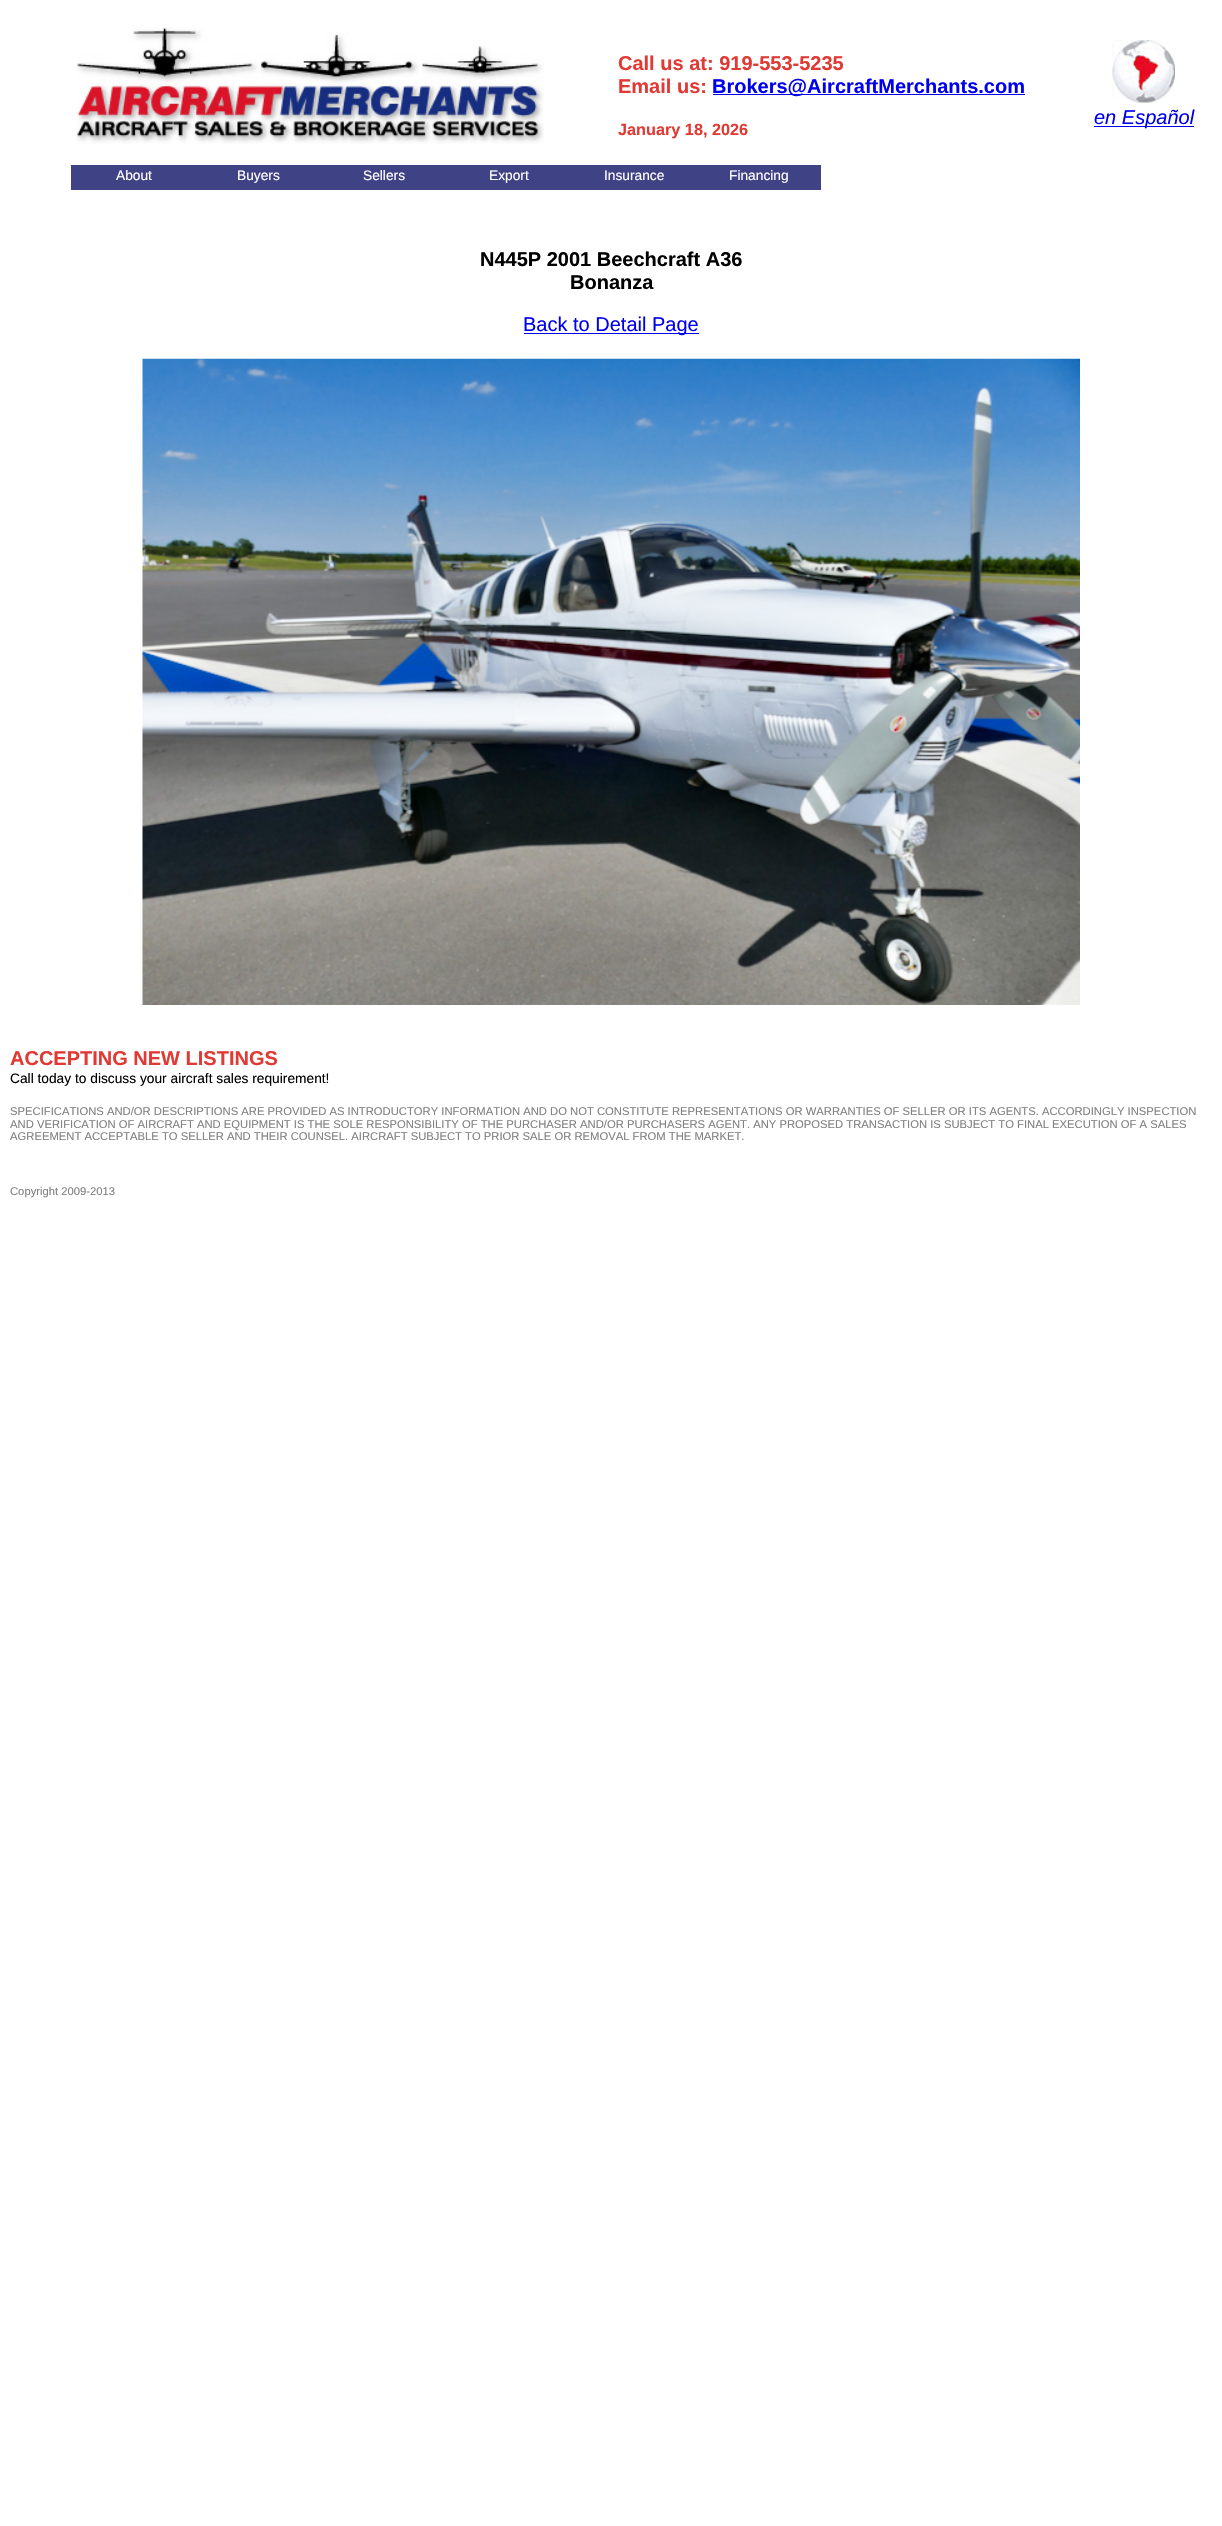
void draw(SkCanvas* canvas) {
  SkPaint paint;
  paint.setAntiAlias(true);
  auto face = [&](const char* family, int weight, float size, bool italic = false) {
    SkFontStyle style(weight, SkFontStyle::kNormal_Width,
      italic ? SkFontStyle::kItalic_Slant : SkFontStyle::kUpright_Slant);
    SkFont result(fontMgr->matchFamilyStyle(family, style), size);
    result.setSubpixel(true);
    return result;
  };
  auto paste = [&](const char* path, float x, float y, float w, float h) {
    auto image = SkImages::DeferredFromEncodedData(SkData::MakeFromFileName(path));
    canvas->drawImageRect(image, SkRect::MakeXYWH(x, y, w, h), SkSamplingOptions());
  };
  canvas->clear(0xffffffff);
  paste("img/1.png", 76, 27, 468, 117);
  paint.setColor(0xff0000ee);
  canvas->drawRect(SkRect::MakeXYWH(713, 94, 312, 1), paint);
  paste("img/2.png", 1112, 40, 63, 63);
  {
    const struct { float x, y, w, h; SkColor color; } items[] = {
      {1094, 126, 100, 1, 0xff0000ee},
      {71, 165, 750, 25, 0xff404286},
      {524, 333, 175, 1, 0xff0000ee},
    };
    for (auto [x, y, w, h, color] : items) {
      paint.setColor(color);
      canvas->drawRect(SkRect::MakeXYWH(x, y, w, h), paint);
    }
  }
  paste("img/3.png", 142, 358, 938, 647);
  auto f0 = face("Liberation Sans", 700, 20);
  paint.setColor(0xffe13934);
  canvas->drawString("Call us at: 919-553-5235", 618, 70, f0, paint);
  canvas->drawString("Email us:", 618, 93, f0, paint);
  paint.setColor(0xff0000ee);
  canvas->drawString("Brokers@AircraftMerchants.com", 712, 93, f0, paint);
  auto f1 = face("Liberation Sans", 700, 16.25f);
  paint.setColor(0xffe13934);
  canvas->drawString("January 18, 2026", 618, 135, f1, paint);
  auto f2 = face("Liberation Sans", 400, 20, true);
  paint.setColor(0xff0000ee);
  canvas->drawString("en Español", 1094, 124, f2, paint);
  auto f3 = face("Liberation Sans", 400, 13.75f);
  paint.setColor(0xffffffff);
  {
    const struct { const char* s; float x, y; } items[] = {
      {"About", 116, 180},
      {"Buyers", 237, 180},
      {"Sellers", 363, 180},
      {"Export", 489, 180},
      {"Insurance", 604, 180},
      {"Financing", 729, 180},
    };
    for (auto [s, x, y] : items) {
      canvas->drawString(s, x, y, f3, paint);
    }
  }
  paint.setColor(0xff000000);
  canvas->drawString("N445P 2001 Beechcraft A36", 480, 266, f0, paint);
  canvas->drawString("Bonanza", 570, 289, f0, paint);
  auto f4 = face("Liberation Sans", 400, 20);
  paint.setColor(0xff0000ee);
  canvas->drawString("Back to Detail Page", 523, 331, f4, paint);
  paint.setColor(0xffe13934);
  canvas->drawString("ACCEPTING NEW LISTINGS", 10, 1065, f0, paint);
  paint.setColor(0xff000000);
  canvas->drawString("Call today to discuss your aircraft sales requirement!", 10, 1083, f3, paint);
  auto f5 = face("Liberation Sans", 400, 11.25f);
  paint.setColor(0xff808080);
  {
    const struct { const char* s; float x, y; } items[] = {
      {"SPECIFICATIONS AND/OR DESCRIPTIONS ARE PROVIDED AS INTRODUCTORY INFORMATION AND DO NOT CONSTITUTE REPRESENTATIONS OR WARRANTIES OF SELLER OR ITS AGENTS. ACCORDINGLY INSPECTION", 10, 1115},
      {"AND VERIFICATION OF AIRCRAFT AND EQUIPMENT IS THE SOLE RESPONSIBILITY OF THE PURCHASER AND/OR PURCHASERS AGENT. ANY PROPOSED TRANSACTION IS SUBJECT TO FINAL EXECUTION OF A SALES", 10, 1128},
      {"AGREEMENT ACCEPTABLE TO SELLER AND THEIR COUNSEL. AIRCRAFT SUBJECT TO PRIOR SALE OR REMOVAL FROM THE MARKET.", 10, 1140},
      {"Copyright 2009-2013", 10, 1195},
    };
    for (auto [s, x, y] : items) {
      canvas->drawString(s, x, y, f5, paint);
    }
  }
}
